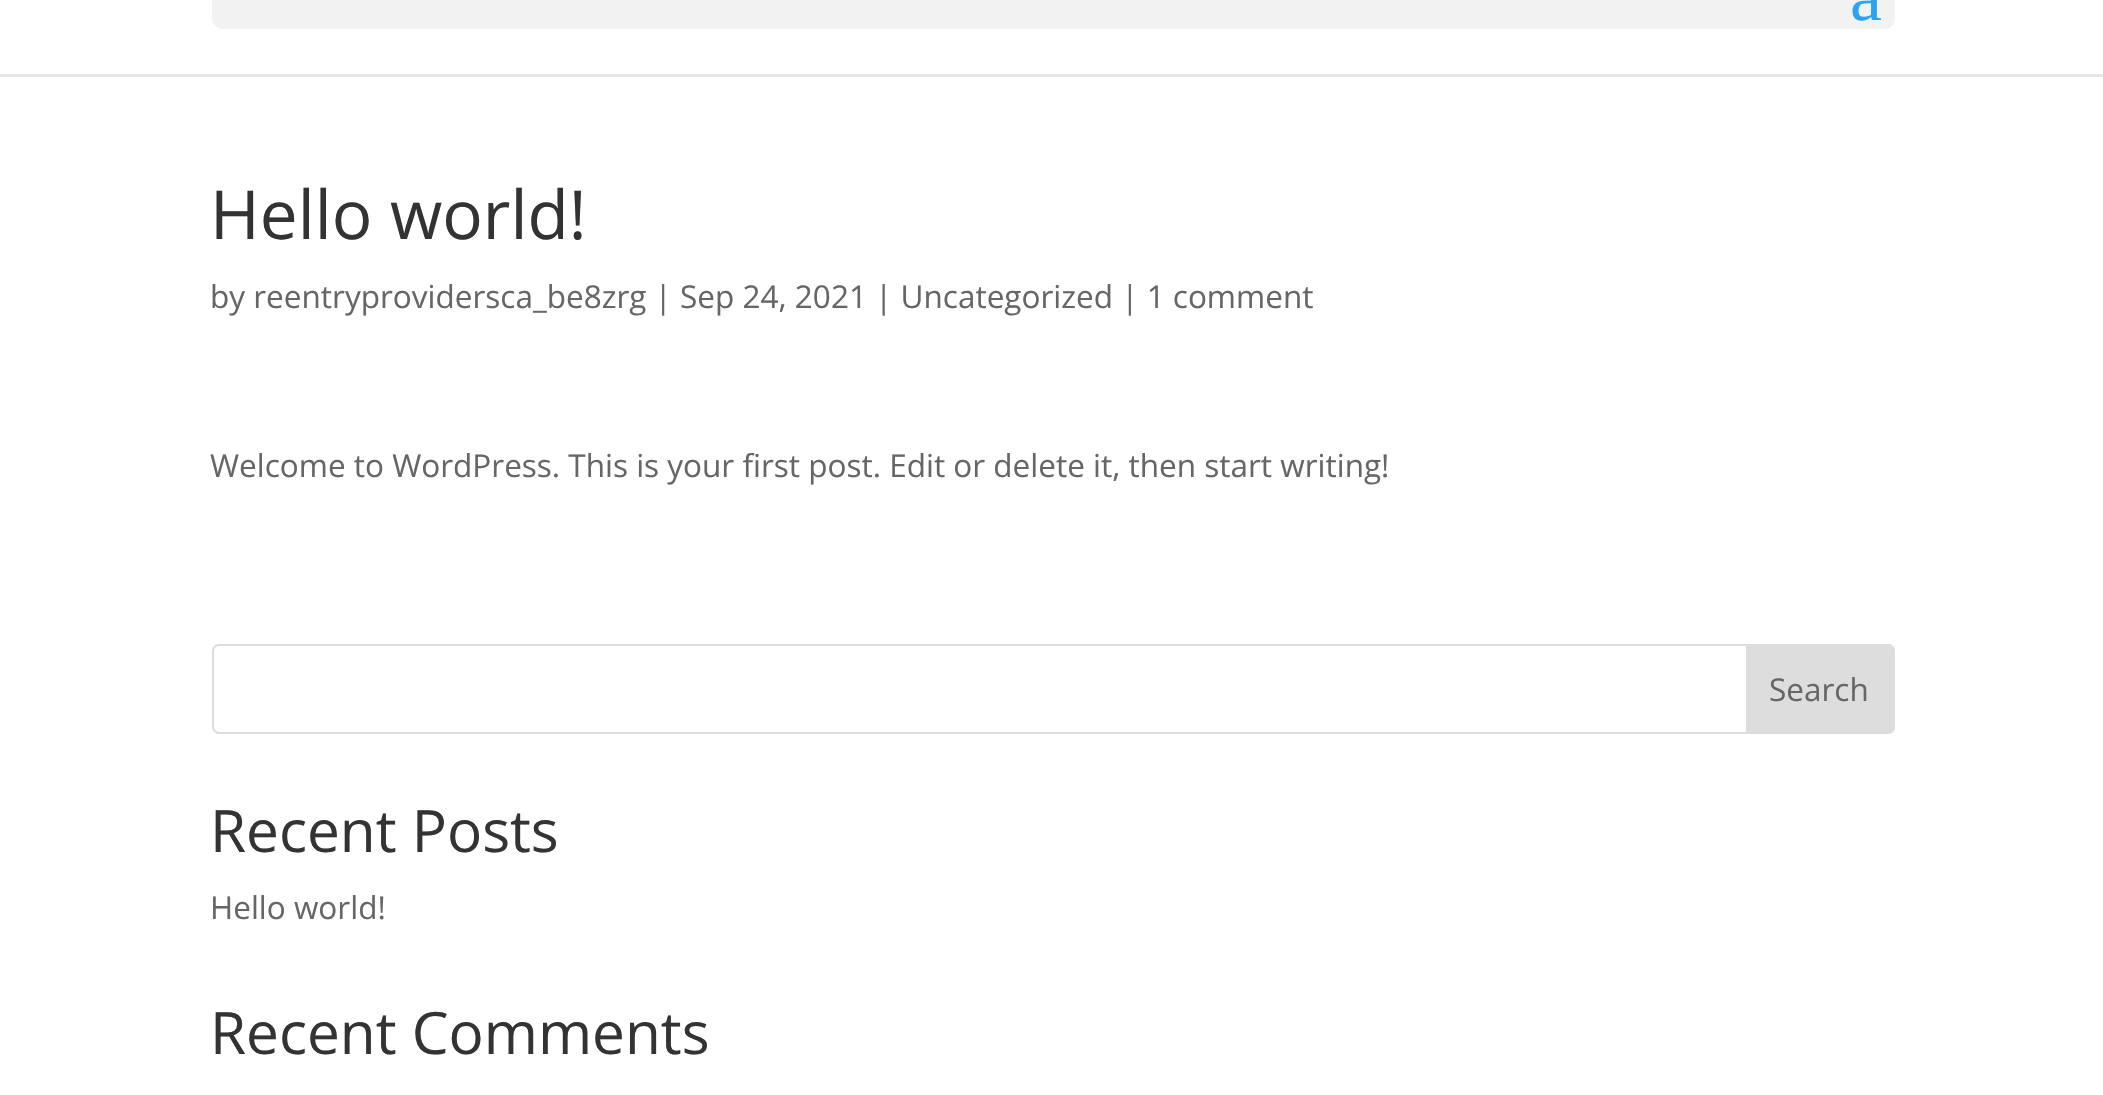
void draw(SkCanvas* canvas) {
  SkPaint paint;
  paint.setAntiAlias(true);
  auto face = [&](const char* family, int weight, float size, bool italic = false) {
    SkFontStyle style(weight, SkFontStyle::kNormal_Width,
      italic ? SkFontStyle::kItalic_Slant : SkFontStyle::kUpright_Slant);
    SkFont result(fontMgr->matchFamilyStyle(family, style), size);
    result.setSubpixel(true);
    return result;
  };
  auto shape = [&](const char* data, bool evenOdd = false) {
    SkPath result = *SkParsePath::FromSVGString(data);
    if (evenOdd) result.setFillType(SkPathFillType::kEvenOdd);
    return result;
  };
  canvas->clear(0xffffffff);
  paint.setColor(0xffe6e6e6);
  canvas->drawPath(shape("M0 74V77H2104V-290V74Z"), paint);
  paint.setColor(0xfff2f2f2);
  canvas->drawRoundRect(SkRect::MakeXYWH(212, -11, 1683, 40), 11, 11, paint);
  paint.setStroke(true);
  paint.setStrokeWidth(2);
  paint.setColor(0xffdddddd);
  canvas->drawRoundRect(SkRect::MakeXYWH(213, 645, 1681, 88), 6, 6, paint);
  paint.setStroke(false);
  canvas->drawPath(shape("M1747 645H1888C1891.5 645 1894 647.5 1894 651V727C1894 730.5 1891.5 733 1888 733H1747Z"), paint);
  paint.setStroke(true);
  canvas->drawPath(shape("M1747 645H1888C1891.5 645 1894 647.5 1894 651V727C1894 730.5 1891.5 733 1888 733H1747Z"), paint);
  auto f0 = face("Liberation Serif", 400, 72);
  paint.setStroke(false);
  paint.setColor(0xff2ea3f2);
  canvas->drawString("a", 1850, 20, f0, paint);
  auto f1 = face("Open Sans", 400, 67.5f);
  paint.setColor(0xff333333);
  canvas->drawString("Hello world!", 210, 239, f1, paint);
  auto f2 = face("Open Sans", 400, 31.5f);
  paint.setColor(0xff666666);
  {
    const struct { const char* s; float x, y; } items[] = {
      {"by reentryprovidersca_be8zrg | Sep 24, 2021 | Uncategorized | 1 comment", 210, 308},
      {"Welcome to WordPress. This is your first post. Edit or delete it, then start writing!", 210, 477},
      {"Search", 1769, 701},
    };
    for (auto [s, x, y] : items) {
      canvas->drawString(s, x, y, f2, paint);
    }
  }
  auto f3 = face("Open Sans", 400, 58.5f);
  paint.setColor(0xff333333);
  canvas->drawString("Recent Posts", 210, 852, f3, paint);
  paint.setColor(0xff666666);
  canvas->drawString("Hello world!", 210, 919, f2, paint);
  paint.setColor(0xff333333);
  canvas->drawString("Recent Comments", 210, 1054, f3, paint);
}
